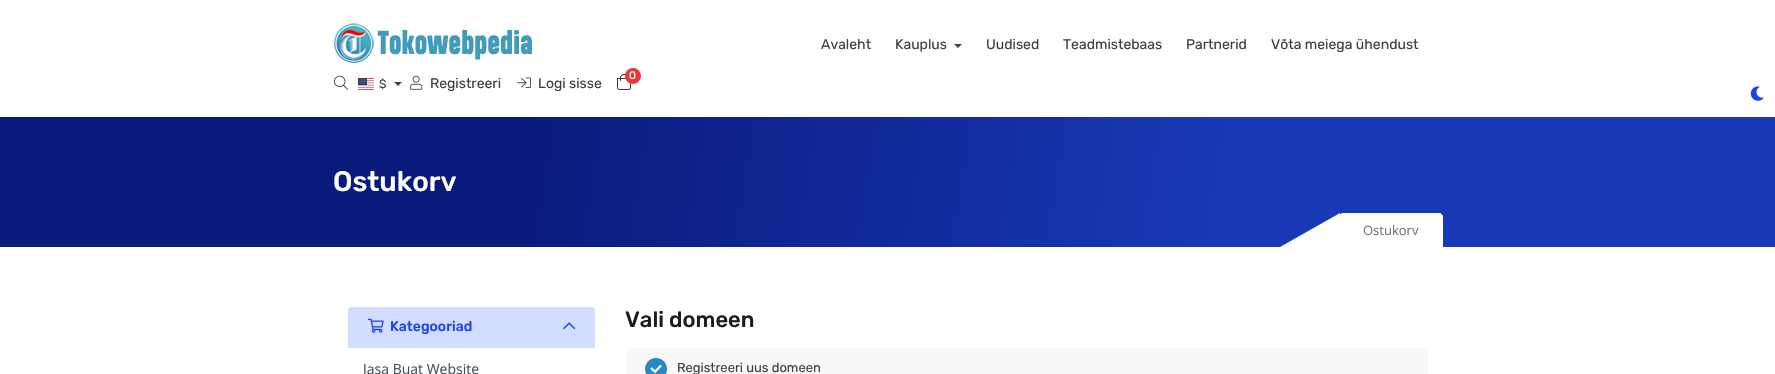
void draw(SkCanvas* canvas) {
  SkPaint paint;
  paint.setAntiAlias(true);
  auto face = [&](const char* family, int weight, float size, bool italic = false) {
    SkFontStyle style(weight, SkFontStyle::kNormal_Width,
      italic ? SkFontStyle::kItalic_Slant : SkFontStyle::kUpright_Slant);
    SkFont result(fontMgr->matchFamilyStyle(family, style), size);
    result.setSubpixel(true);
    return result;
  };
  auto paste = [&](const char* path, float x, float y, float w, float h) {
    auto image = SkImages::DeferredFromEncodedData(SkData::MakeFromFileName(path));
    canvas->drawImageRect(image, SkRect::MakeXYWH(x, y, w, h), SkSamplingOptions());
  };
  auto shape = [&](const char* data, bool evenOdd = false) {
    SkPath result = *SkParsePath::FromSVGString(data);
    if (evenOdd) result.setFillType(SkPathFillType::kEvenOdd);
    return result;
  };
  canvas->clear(0xffffffff);
  paste("img/1.png", 334, 23, 198, 40);
  paint.setColor(0xff404040);
  canvas->drawPath(shape("M954 44H962L958 48Z"), paint);
  paste("img/2.png", 334, 75, 14, 15);
  paste("img/3.png", 358, 78, 16, 12);
  canvas->drawPath(shape("M394 82H402L398 86Z"), paint);
  paste("img/4.png", 410, 75, 13, 15);
  paste("img/5.png", 517, 77, 14, 11);
  paste("img/6.png", 617, 74, 14, 16);
  paint.setColor(0xffe83737);
  canvas->drawCircle(633, 76, 8, paint);
  paste("img/7.png", 1750, 86, 14, 15);
  {
    const SkColor colors[] = {0xff1939b7, 0xff091a7a};
    const float stops[] = {0.31f, 0.71f};
    const SkPoint ends[] = {{1762, 325}, {13, 39}};
    paint.setShader(SkGradientShader::MakeLinear(ends, colors, stops, 2, SkTileMode::kClamp));
    paint.setAlpha(255);
  }
  canvas->drawRect(SkRect::MakeXYWH(0, 117, 1775, 130), paint);
  paint.setShader(nullptr);
  paint.setColor(0xffffffff);
  canvas->drawPath(shape("M1343 213H1439C1441 213 1443 215 1443 217V247H1339V217C1339 215 1341 213 1343 213Z"), paint);
  canvas->drawPath(shape("M1340 247H1280L1340 213Z"), paint);
  paint.setColor(0xffd1dcfe);
  canvas->drawPath(shape("M351 307H592C593.5 307 595 308.5 595 310V348H348V310C348 308.5 349.5 307 351 307Z"), paint);
  paste("img/8.png", 368, 318, 16, 15);
  paste("img/9.png", 563, 322, 13, 8);
  paint.setColor(0xfff8f8f8);
  canvas->drawRoundRect(SkRect::MakeXYWH(625, 348, 803, 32), 6, 6, paint);
  paste("img/10.png", 645, 358, 22, 16);
  auto f0 = face("Rubik", 400, 14);
  paint.setColor(0xff404040);
  {
    const struct { const char* s; float x, y; } items[] = {
      {"Avaleht", 821, 49},
      {"Kauplus", 895, 49},
      {"Uudised", 986, 49},
      {"Teadmistebaas", 1063, 49},
      {"Partnerid", 1186, 49},
      {"Võta meiega ühendust", 1271, 49},
    };
    for (auto [s, x, y] : items) {
      canvas->drawString(s, x, y, f0, paint);
    }
  }
  auto f1 = face("Rubik", 400, 12);
  canvas->drawString("$", 379, 88, f1, paint);
  canvas->drawString("Registreeri", 430, 88, f0, paint);
  canvas->drawString("Logi sisse", 538, 88, f0, paint);
  auto f2 = face("Rubik", 400, 11);
  paint.setColor(0xffffffff);
  canvas->drawString("0", 629, 79, f2, paint);
  auto f3 = face("Rubik", 500, 28);
  canvas->drawString("Ostukorv", 333, 191, f3, paint);
  auto f4 = face("Open Sans", 400, 13);
  paint.setColor(0xff6c757d);
  canvas->drawString("Ostukorv", 1363, 235, f4, paint);
  auto f5 = face("Rubik", 500, 14);
  paint.setColor(0xff1c40f2);
  canvas->drawString("Kategooriad", 390, 331, f5, paint);
  auto f6 = face("Open Sans", 400, 14);
  paint.setColor(0xff495057);
  canvas->drawString("Jasa Buat Website", 363, 374, f6, paint);
  auto f7 = face("Rubik", 500, 22);
  paint.setColor(0xff1d1d1f);
  canvas->drawString("Vali domeen", 625, 327, f7, paint);
  auto f8 = face("Rubik", 400, 13);
  paint.setColor(0xff404040);
  canvas->drawString("Registreeri uus domeen", 677, 372, f8, paint);
}
